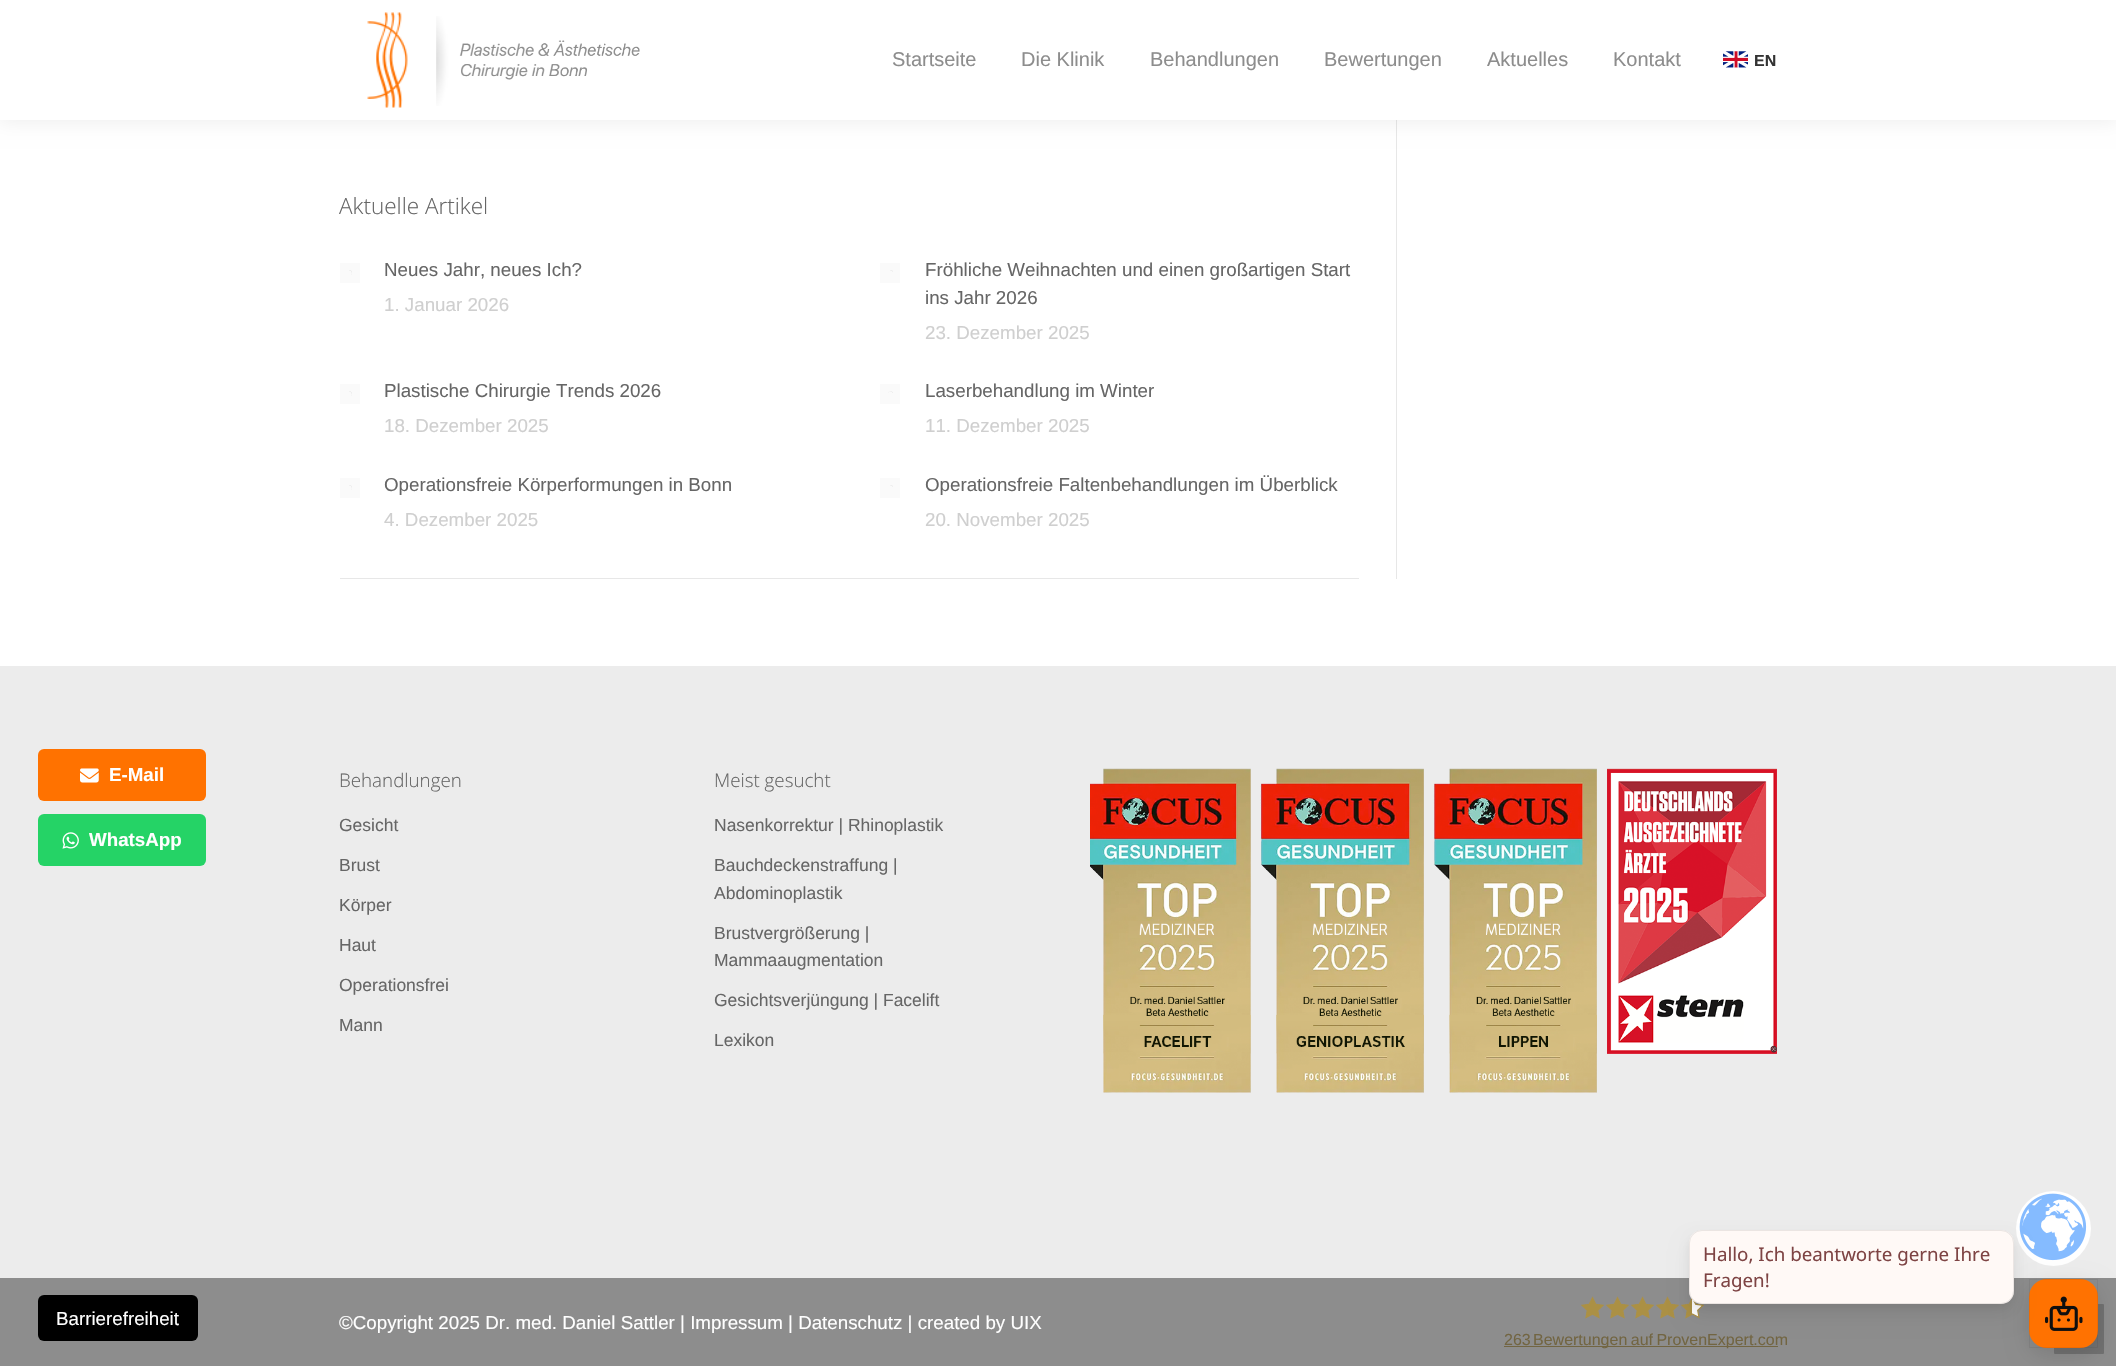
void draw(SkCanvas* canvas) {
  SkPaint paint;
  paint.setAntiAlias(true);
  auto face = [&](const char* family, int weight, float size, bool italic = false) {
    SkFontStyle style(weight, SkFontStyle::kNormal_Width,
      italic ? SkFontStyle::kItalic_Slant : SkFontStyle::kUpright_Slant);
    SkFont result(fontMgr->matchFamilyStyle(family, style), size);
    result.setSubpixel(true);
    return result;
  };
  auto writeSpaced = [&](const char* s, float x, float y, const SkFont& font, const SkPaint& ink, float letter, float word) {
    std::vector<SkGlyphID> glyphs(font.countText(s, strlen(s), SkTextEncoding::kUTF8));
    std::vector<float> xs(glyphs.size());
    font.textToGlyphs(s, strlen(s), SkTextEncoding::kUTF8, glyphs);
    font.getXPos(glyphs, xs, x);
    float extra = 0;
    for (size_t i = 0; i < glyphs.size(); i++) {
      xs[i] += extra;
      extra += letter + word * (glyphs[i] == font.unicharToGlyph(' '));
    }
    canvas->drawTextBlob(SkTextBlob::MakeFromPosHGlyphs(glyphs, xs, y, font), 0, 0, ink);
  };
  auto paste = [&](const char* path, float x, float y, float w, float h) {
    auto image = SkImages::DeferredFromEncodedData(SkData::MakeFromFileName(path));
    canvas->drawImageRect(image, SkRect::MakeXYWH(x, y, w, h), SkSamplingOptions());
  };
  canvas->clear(0xffffffff);
  paint.setColor(0xffe7e7e7);
  canvas->drawRect(SkRect::MakeXYWH(1396, 120, 1, 459), paint);
  paint.setColor(0x12000000);
  paint.setMaskFilter(SkMaskFilter::MakeBlur(kNormal_SkBlurStyle, 9.5f));
  canvas->drawRect(SkRect::MakeXYWH(-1, -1, 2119, 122), paint);
  paint.setMaskFilter(nullptr);
  paint.setColor(0xffffffff);
  canvas->drawRect(SkRect::MakeXYWH(0, 0, 2116, 120), paint);
  paste("img/1.png", 367, 12, 41, 96);
  paste("img/2.png", 436, 16, 204, 90);
  paste("img/3.png", 1723, 51, 25, 17);
  paint.setColor(0xffe7e7e7);
  canvas->drawRect(SkRect::MakeXYWH(340, 578, 1019, 1), paint);
  paint.setColor(0xfffafafa);
  canvas->drawRect(SkRect::MakeXYWH(340, 263, 20, 20), paint);
  paste("img/4.png", 349, 270, 3, 5);
  canvas->drawRect(SkRect::MakeXYWH(880, 263, 20, 20), paint);
  paste("img/5.png", 890, 270, 3, 2);
  canvas->drawRect(SkRect::MakeXYWH(340, 384, 20, 20), paint);
  paste("img/6.png", 349, 391, 3, 5);
  canvas->drawRect(SkRect::MakeXYWH(880, 384, 20, 20), paint);
  paste("img/7.png", 888, 391, 5, 2);
  canvas->drawRect(SkRect::MakeXYWH(340, 478, 20, 20), paint);
  paste("img/4.png", 349, 485, 3, 5);
  canvas->drawRect(SkRect::MakeXYWH(880, 478, 20, 20), paint);
  paste("img/5.png", 890, 485, 3, 2);
  paint.setColor(0xffececec);
  canvas->drawRect(SkRect::MakeXYWH(0, 666, 2116, 612), paint);
  paint.setColor(0xffffffff);
  canvas->drawCircle(2053.5f, 1228.5f, 37.5f, paint);
  paste("img/8.png", 2019, 1193, 68, 68);
  paint.setColor(0xff8d8d8d);
  canvas->drawRect(SkRect::MakeXYWH(0, 1278, 2116, 88), paint);
  paint.setColor(0xff000000);
  canvas->drawRoundRect(SkRect::MakeXYWH(38, 1295, 160, 46), 6, 6, paint);
  paint.setColor(0xffff7200);
  canvas->drawRoundRect(SkRect::MakeXYWH(38, 749, 168, 52), 6, 6, paint);
  paste("img/9.png", 80, 768, 19, 15);
  paint.setColor(0xff25d366);
  canvas->drawRoundRect(SkRect::MakeXYWH(38, 814, 168, 52), 6, 6, paint);
  paste("img/10.png", 62, 832, 17, 17);
  paste("img/11.png", 1090, 768, 687, 325);
  paste("img/12.png", 1581, 1296, 23, 23);
  paste("img/12.png", 1606, 1296, 23, 23);
  paste("img/12.png", 1631, 1296, 23, 23);
  paste("img/12.png", 1656, 1296, 23, 23);
  paste("img/13.png", 1681, 1297, 23, 22);
  paint.setColor(0xff726542);
  canvas->drawRect(SkRect::MakeXYWH(1504, 1346, 274, 1), paint);
  paint.setColor(0xff717171);
  canvas->drawRoundRect(SkRect::MakeXYWH(2054, 1304, 50, 50), 1, 1, paint);
  paint.setColor(0x0d000000);
  paint.setMaskFilter(SkMaskFilter::MakeBlur(kNormal_SkBlurStyle, 4));
  canvas->drawRoundRect(SkRect::MakeXYWH(1689, 1235, 325, 74), 13, 13, paint);
  paint.setMaskFilter(nullptr);
  paint.setColor(0x1f000000);
  paint.setMaskFilter(SkMaskFilter::MakeBlur(kNormal_SkBlurStyle, 11));
  canvas->drawRoundRect(SkRect::MakeXYWH(2029, 1286, 69, 69), 18, 18, paint);
  paint.setMaskFilter(nullptr);
  paint.setColor(0xffff7201);
  canvas->drawRoundRect(SkRect::MakeXYWH(2029, 1279, 69, 69), 18, 18, paint);
  paint.setStroke(true);
  paint.setStrokeWidth(1);
  paint.setColor(0x0f000000);
  canvas->drawRect(SkRect::MakeXYWH(2029.5f, 1279.5f, 68, 68), paint);
  paint.setStroke(false);
  paint.setMaskFilter(SkMaskFilter::MakeBlur(kNormal_SkBlurStyle, 9.5f));
  canvas->drawRoundRect(SkRect::MakeXYWH(1689, 1243, 325, 73), 13, 13, paint);
  paint.setMaskFilter(nullptr);
  paint.setColor(0xfffff9f6);
  canvas->drawRoundRect(SkRect::MakeXYWH(1689, 1230, 325, 74), 13, 13, paint);
  paint.setStroke(true);
  paint.setColor(0x14000000);
  canvas->drawRoundRect(SkRect::MakeXYWH(1689.5f, 1230.5f, 324, 73), 12.5f, 12.5f, paint);
  paste("img/14.png", 2045, 1296, 38, 35);
  auto f0 = face("Liberation Sans", 400, 20);
  paint.setStroke(false);
  paint.setColor(0xff8d8d8d);
  {
    const struct { const char* s; float x, y; } items[] = {
      {"Startseite", 892, 66},
      {"Die Klinik", 1021, 66},
      {"Behandlungen", 1150, 66},
      {"Bewertungen", 1324, 66},
      {"Aktuelles", 1487, 66},
      {"Kontakt", 1613, 66},
    };
    for (auto [s, x, y] : items) {
      canvas->drawString(s, x, y, f0, paint);
    }
  }
  auto f1 = face("Liberation Sans", 700, 16);
  paint.setColor(0xff333333);
  canvas->drawString("EN", 1754, 66, f1, paint);
  auto f2 = face("Open Sans", 300, 22.5f);
  paint.setColor(0xff666666);
  canvas->drawString("Aktuelle Artikel", 339, 214, f2, paint);
  auto f3 = face("Liberation Sans", 400, 18.75f);
  canvas->drawString("Neues Jahr, neues Ich?", 384, 276, f3, paint);
  paint.setColor(0xffcfcfcf);
  canvas->drawString("1. Januar 2026", 384, 311, f3, paint);
  paint.setColor(0xff666666);
  canvas->drawString("Fröhliche Weihnachten und einen großartigen Start", 925, 276, f3, paint);
  canvas->drawString("ins Jahr 2026", 925, 304, f3, paint);
  paint.setColor(0xffcfcfcf);
  canvas->drawString("23. Dezember 2025", 925, 339, f3, paint);
  paint.setColor(0xff666666);
  canvas->drawString("Plastische Chirurgie Trends 2026", 384, 397, f3, paint);
  paint.setColor(0xffcfcfcf);
  canvas->drawString("18. Dezember 2025", 384, 432, f3, paint);
  paint.setColor(0xff666666);
  canvas->drawString("Laserbehandlung im Winter", 925, 397, f3, paint);
  paint.setColor(0xffcfcfcf);
  canvas->drawString("11. Dezember 2025", 925, 432, f3, paint);
  paint.setColor(0xff666666);
  canvas->drawString("Operationsfreie Körperformungen in Bonn", 384, 491, f3, paint);
  paint.setColor(0xffcfcfcf);
  canvas->drawString("4. Dezember 2025", 384, 526, f3, paint);
  paint.setColor(0xff666666);
  canvas->drawString("Operationsfreie Faltenbehandlungen im Überblick", 925, 491, f3, paint);
  paint.setColor(0xffcfcfcf);
  canvas->drawString("20. November 2025", 925, 526, f3, paint);
  paint.setColor(0xffffffff);
  canvas->drawString("Barrierefreiheit", 56, 1325, f3, paint);
  auto f4 = face("Liberation Sans", 700, 18.75f);
  canvas->drawString("E-Mail", 109, 781, f4, paint);
  canvas->drawString("WhatsApp", 89, 846, f4, paint);
  auto f5 = face("Open Sans", 300, 18.75f);
  paint.setColor(0xff666666);
  canvas->drawString("Behandlungen", 339, 787, f5, paint);
  auto f6 = face("Liberation Sans", 400, 17.5f);
  {
    const struct { const char* s; float x, y; } items[] = {
      {"Gesicht", 339, 831},
      {"Brust", 339, 871},
      {"Körper", 339, 911},
      {"Haut", 339, 951},
      {"Operationsfrei", 339, 991},
      {"Mann", 339, 1031},
    };
    for (auto [s, x, y] : items) {
      canvas->drawString(s, x, y, f6, paint);
    }
  }
  canvas->drawString("Meist gesucht", 714, 787, f5, paint);
  {
    const struct { const char* s; float x, y; } items[] = {
      {"Nasenkorrektur | Rhinoplastik", 714, 831},
      {"Bauchdeckenstraffung |", 714, 871},
      {"Abdominoplastik", 714, 899},
      {"Brustvergrößerung |", 714, 939},
      {"Mammaaugmentation", 714, 966},
      {"Gesichtsverjüngung | Facelift", 714, 1006},
      {"Lexikon", 714, 1046},
    };
    for (auto [s, x, y] : items) {
      canvas->drawString(s, x, y, f6, paint);
    }
  }
  paint.setColor(0xffffffff);
  canvas->drawString("©Copyright 2025 Dr. med. Daniel Sattler | Impressum | Datenschutz | created by UIX", 339, 1329, f3, paint);
  auto f7 = face("Liberation Sans", 400, 16);
  paint.setColor(0xff726542);
  canvas->drawString("263", 1504, 1345, f7, paint);
  writeSpaced("Bewertungen auf ProvenExpert.com", 1533, 1345, f7, paint, 0, -1);
  auto f8 = face("Noto Sans", 400, 18.75f);
  paint.setColor(0xff7e4444);
  canvas->drawString("Hallo, Ich beantworte gerne Ihre", 1703, 1261, f8, paint);
  canvas->drawString("Fragen!", 1703, 1287, f8, paint);
}
